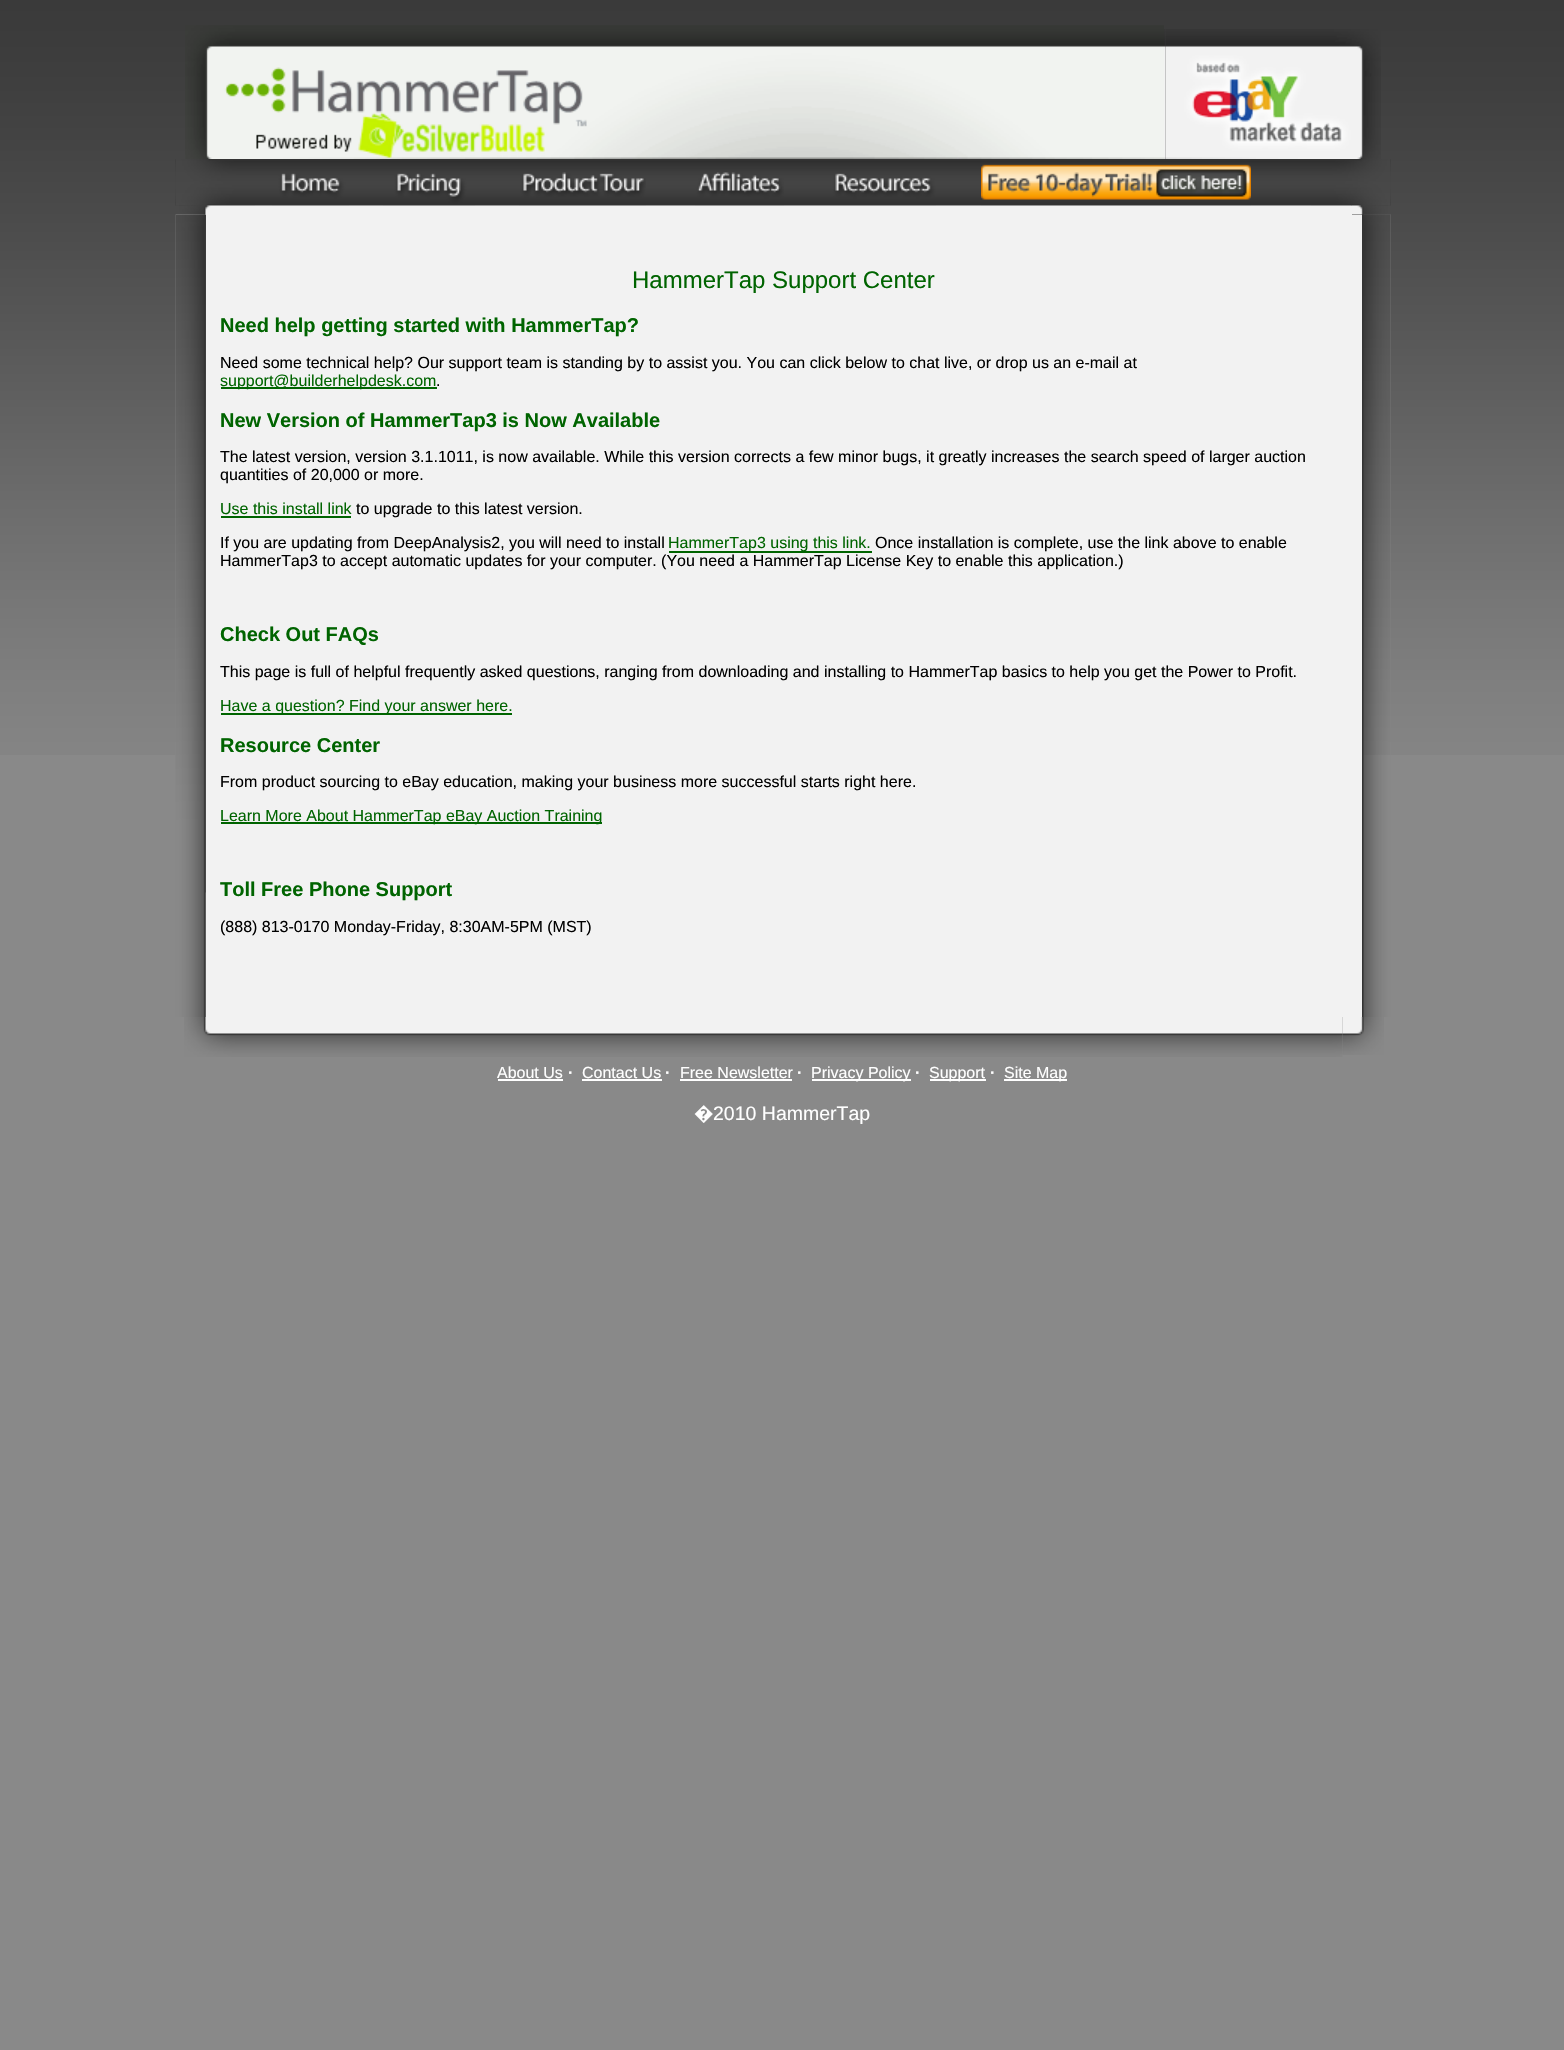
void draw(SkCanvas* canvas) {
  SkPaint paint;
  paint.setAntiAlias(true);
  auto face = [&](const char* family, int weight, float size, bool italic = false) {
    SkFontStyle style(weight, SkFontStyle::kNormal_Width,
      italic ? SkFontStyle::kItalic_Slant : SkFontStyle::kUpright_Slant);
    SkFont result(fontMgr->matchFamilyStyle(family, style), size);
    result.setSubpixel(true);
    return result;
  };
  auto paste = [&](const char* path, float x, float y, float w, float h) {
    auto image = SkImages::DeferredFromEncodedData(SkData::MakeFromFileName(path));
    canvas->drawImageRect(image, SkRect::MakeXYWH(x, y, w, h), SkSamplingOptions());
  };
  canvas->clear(0xff898989);
  paste("img/1.png", 0, 0, 1564, 755);
  paste("img/2.png", 185, 25, 979, 134);
  paste("img/3.png", 1164, 29, 2, 130);
  paste("img/4.png", 1165, 29, 216, 130);
  paste("img/5.png", 175, 159, 1216, 47);
  paste("img/6.png", 175, 159, 80, 47);
  paste("img/7.png", 272, 173, 77, 33);
  paste("img/8.png", 383, 173, 92, 33);
  paste("img/9.png", 519, 172, 127, 34);
  paste("img/10.png", 695, 172, 89, 34);
  paste("img/11.png", 830, 173, 106, 33);
  paste("img/12.png", 981, 164, 270, 42);
  paste("img/13.png", 1311, 159, 80, 47);
  paint.setColor(0xfff2f2f2);
  canvas->drawRect(SkRect::MakeXYWH(176, 206, 1176, 9), paint);
  paste("img/16.png", 175, 214, 31, 803);
  paste("img/14.png", 176, 205, 1176, 10);
  paste("img/18.png", 1362, 214, 29, 803);
  paste("img/15.png", 1351, 205, 39, 10);
  paste("img/17.png", 175, 214, 31, 679);
  {
    const struct { float x, y, w, h; SkColor color; } items[] = {
      {206, 215, 1156, 802, 0xfff2f2f2},
      {221, 387, 216, 2, 0xff006400},
      {221, 516, 130, 2, 0xff006400},
      {669, 551, 203, 2, 0xff006400},
      {221, 713, 291, 2, 0xff006400},
      {221, 822, 381, 2, 0xff006400},
    };
    for (auto [x, y, w, h, color] : items) {
      paint.setColor(color);
      canvas->drawRect(SkRect::MakeXYWH(x, y, w, h), paint);
    }
  }
  paste("img/19.png", 1362, 214, 29, 541);
  paste("img/20.png", 184, 1017, 1159, 40);
  paste("img/21.png", 1342, 1017, 2, 38);
  paste("img/22.png", 1344, 1017, 40, 38);
  {
    const struct { float x, y, w, h; SkColor color; } items[] = {
      {498, 1079, 65, 2, 0xffffffff},
      {582, 1079, 80, 2, 0xffffffff},
      {680, 1079, 112, 2, 0xffffffff},
      {812, 1079, 99, 2, 0xffffffff},
      {930, 1079, 56, 2, 0xffffffff},
      {1004, 1079, 63, 2, 0xffffffff},
    };
    for (auto [x, y, w, h, color] : items) {
      paint.setColor(color);
      canvas->drawRect(SkRect::MakeXYWH(x, y, w, h), paint);
    }
  }
  auto f0 = face("Liberation Sans", 400, 24);
  paint.setColor(0xff006400);
  canvas->drawString("HammerTap Support Center", 632, 288, f0, paint);
  auto f1 = face("Liberation Sans", 700, 20);
  canvas->drawString("Need help getting started with HammerTap?", 220, 332, f1, paint);
  auto f2 = face("Liberation Sans", 400, 16);
  paint.setColor(0xff000000);
  canvas->drawString("Need some technical help? Our support team is standing by to assist you. You can click below to chat live, or drop us an e-mail at", 220, 368, f2, paint);
  paint.setColor(0xff006400);
  canvas->drawString("support@builderhelpdesk.com", 220, 386, f2, paint);
  paint.setColor(0xff000000);
  canvas->drawString(".", 436, 386, f2, paint);
  paint.setColor(0xff006400);
  canvas->drawString("New Version of HammerTap3 is Now Available", 220, 427, f1, paint);
  paint.setColor(0xff000000);
  canvas->drawString("The latest version, version 3.1.1011, is now available. While this version corrects a few minor bugs, it greatly increases the search speed of larger auction", 220, 462, f2, paint);
  canvas->drawString("quantities of 20,000 or more.", 220, 480, f2, paint);
  paint.setColor(0xff006400);
  canvas->drawString("Use this install link", 220, 514, f2, paint);
  paint.setColor(0xff000000);
  canvas->drawString("to upgrade to this latest version.", 356, 514, f2, paint);
  canvas->drawString("If you are updating from DeepAnalysis2, you will need to install", 220, 548, f2, paint);
  paint.setColor(0xff006400);
  canvas->drawString("HammerTap3 using this link.", 668, 548, f2, paint);
  paint.setColor(0xff000000);
  canvas->drawString("Once installation is complete, use the link above to enable", 875, 548, f2, paint);
  canvas->drawString("HammerTap3 to accept automatic updates for your computer. (You need a HammerTap License Key to enable this application.)", 220, 566, f2, paint);
  paint.setColor(0xff006400);
  canvas->drawString("Check Out FAQs", 220, 641, f1, paint);
  paint.setColor(0xff000000);
  canvas->drawString("This page is full of helpful frequently asked questions, ranging from downloading and installing to HammerTap basics to help you get the Power to Profit.", 220, 677, f2, paint);
  paint.setColor(0xff006400);
  canvas->drawString("Have a question? Find your answer here.", 220, 711, f2, paint);
  canvas->drawString("Resource Center", 220, 752, f1, paint);
  paint.setColor(0xff000000);
  canvas->drawString("From product sourcing to eBay education, making your business more successful starts right here.", 220, 787, f2, paint);
  paint.setColor(0xff006400);
  canvas->drawString("Learn More About HammerTap eBay Auction Training", 220, 821, f2, paint);
  canvas->drawString("Toll Free Phone Support", 220, 896, f1, paint);
  paint.setColor(0xff000000);
  canvas->drawString("(888) 813-0170 Monday-Friday, 8:30AM-5PM (MST)", 220, 932, f2, paint);
  paint.setColor(0xffffffff);
  canvas->drawString("About Us", 497, 1078, f2, paint);
  auto f3 = face("Liberation Sans", 700, 16);
  canvas->drawString("·", 568, 1078, f3, paint);
  canvas->drawString("Contact Us", 582, 1078, f2, paint);
  canvas->drawString("·", 665, 1078, f3, paint);
  canvas->drawString("Free Newsletter", 680, 1078, f2, paint);
  canvas->drawString("·", 797, 1078, f3, paint);
  canvas->drawString("Privacy Policy", 811, 1078, f2, paint);
  canvas->drawString("·", 915, 1078, f3, paint);
  canvas->drawString("Support", 929, 1078, f2, paint);
  canvas->drawString("·", 990, 1078, f3, paint);
  canvas->drawString("Site Map", 1004, 1078, f2, paint);
  auto f4 = face("Noto Sans", 400, 19.5f);
  canvas->drawString("�", 694, 1120, f4, paint);
  auto f5 = face("Liberation Sans", 400, 19.5f);
  canvas->drawString("2010 HammerTap", 713, 1120, f5, paint);
}
